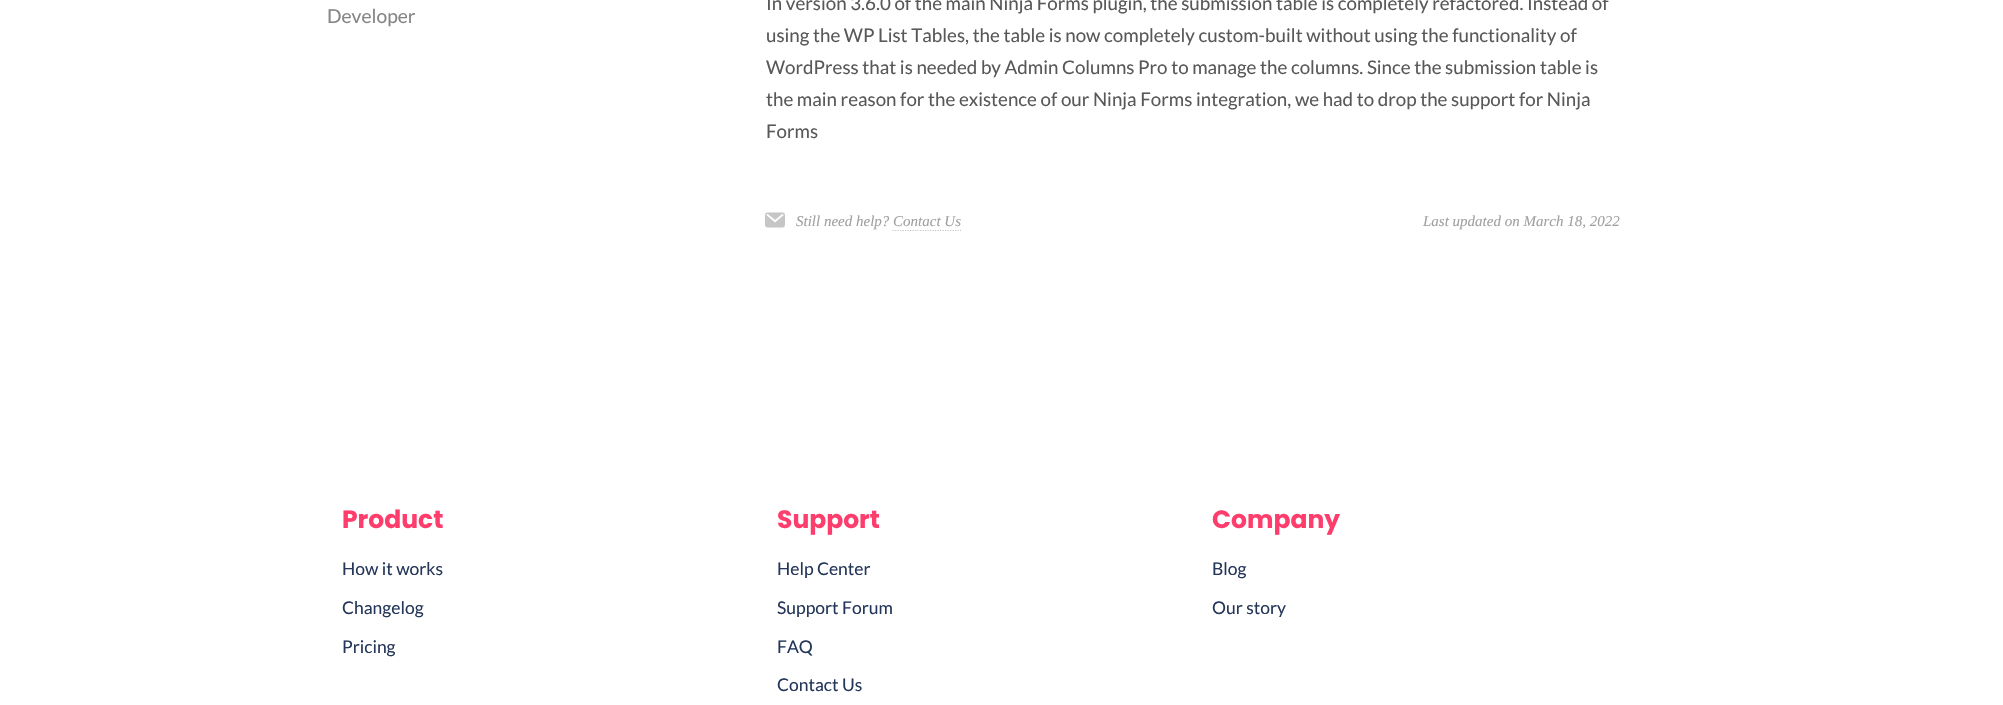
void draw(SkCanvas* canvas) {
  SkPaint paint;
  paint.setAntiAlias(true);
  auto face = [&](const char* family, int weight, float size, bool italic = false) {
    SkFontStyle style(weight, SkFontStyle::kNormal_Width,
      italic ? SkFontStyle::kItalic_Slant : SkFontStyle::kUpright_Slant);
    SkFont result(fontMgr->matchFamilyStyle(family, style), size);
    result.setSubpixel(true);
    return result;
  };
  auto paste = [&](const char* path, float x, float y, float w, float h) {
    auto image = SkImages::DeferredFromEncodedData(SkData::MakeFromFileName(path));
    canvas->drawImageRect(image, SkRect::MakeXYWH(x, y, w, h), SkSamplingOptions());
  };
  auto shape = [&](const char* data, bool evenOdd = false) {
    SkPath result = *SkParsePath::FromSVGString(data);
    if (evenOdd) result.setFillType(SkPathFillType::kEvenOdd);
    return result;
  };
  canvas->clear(0xffffffff);
  paste("img/1.png", 765, 212, 20, 16);
  auto f0 = face("Lato", 400, 19.25f);
  paint.setColor(0xff858585);
  canvas->drawString("Developer", 327, 23, f0, paint);
  auto f1 = face("Lato", 400, 18.75f);
  paint.setColor(0xff585858);
  {
    const struct { const char* s; float x, y; } items[] = {
      {"In version 3.6.0 of the main Ninja Forms plugin, the submission table is completely refactored. Instead of", 766, 10},
      {"using the WP List Tables, the table is now completely custom-built without using the functionality of", 766, 42},
      {"WordPress that is needed by Admin Columns Pro to manage the columns. Since the submission table is", 766, 74},
      {"the main reason for the existence of our Ninja Forms integration, we had to drop the support for Ninja", 766, 106},
      {"Forms", 766, 138},
    };
    for (auto [s, x, y] : items) {
      canvas->drawString(s, x, y, f1, paint);
    }
  }
  auto f2 = face("Liberation Serif", 400, 15, true);
  paint.setColor(0xffa0a0a0);
  canvas->drawString("Still need help? Contact Us", 796, 226, f2, paint);
  paint.setStroke(true);
  paint.setStrokeWidth(1.2f);
  paint.setColor(0xffc5c5c5);
  paint.setPathEffect(SkDashPathEffect::Make({{1.25f, 1.25f}}, 0));
  canvas->drawPath(shape("M892.5 230.5H961"), paint);
  paint.setPathEffect(nullptr);
  paint.setStroke(false);
  paint.setColor(0xffa0a0a0);
  canvas->drawString("Last updated on March 18, 2022", 1423, 226, f2, paint);
  auto f3 = face("Poppins", 700, 25);
  paint.setColor(0xfffe3d6c);
  canvas->drawString("Product", 342, 528, f3, paint);
  auto f4 = face("Lato", 400, 17.5f);
  paint.setColor(0xff243659);
  {
    const struct { const char* s; float x, y; } items[] = {
      {"How it works", 342, 575},
      {"Changelog", 342, 614},
      {"Pricing", 342, 653},
    };
    for (auto [s, x, y] : items) {
      canvas->drawString(s, x, y, f4, paint);
    }
  }
  paint.setColor(0xfffe3d6c);
  canvas->drawString("Support", 777, 528, f3, paint);
  paint.setColor(0xff243659);
  {
    const struct { const char* s; float x, y; } items[] = {
      {"Help Center", 777, 575},
      {"Support Forum", 777, 614},
      {"FAQ", 777, 653},
      {"Contact Us", 777, 691},
    };
    for (auto [s, x, y] : items) {
      canvas->drawString(s, x, y, f4, paint);
    }
  }
  paint.setColor(0xfffe3d6c);
  canvas->drawString("Company", 1212, 528, f3, paint);
  paint.setColor(0xff243659);
  canvas->drawString("Blog", 1212, 575, f4, paint);
  canvas->drawString("Our story", 1212, 614, f4, paint);
}
